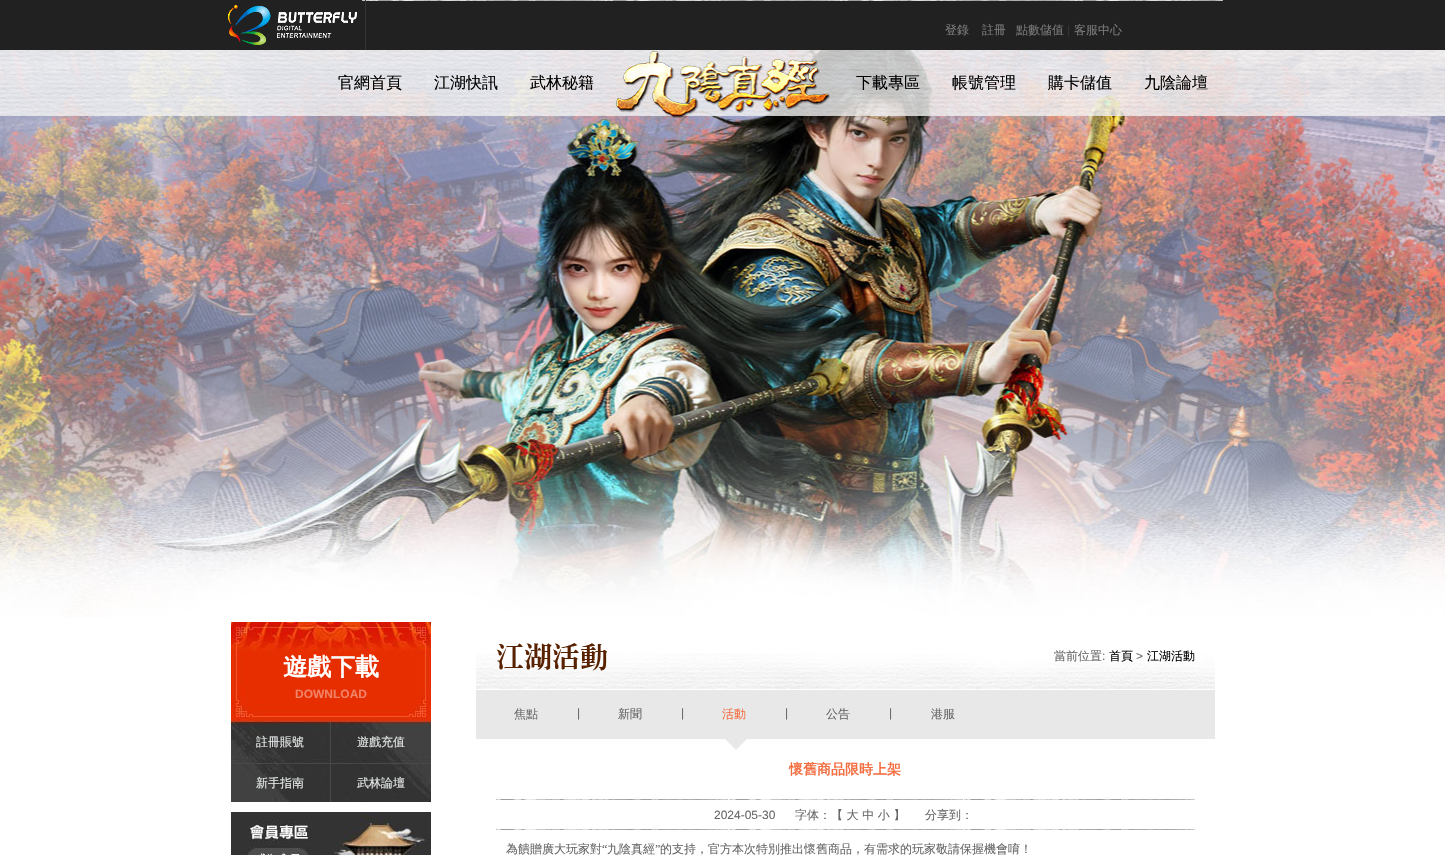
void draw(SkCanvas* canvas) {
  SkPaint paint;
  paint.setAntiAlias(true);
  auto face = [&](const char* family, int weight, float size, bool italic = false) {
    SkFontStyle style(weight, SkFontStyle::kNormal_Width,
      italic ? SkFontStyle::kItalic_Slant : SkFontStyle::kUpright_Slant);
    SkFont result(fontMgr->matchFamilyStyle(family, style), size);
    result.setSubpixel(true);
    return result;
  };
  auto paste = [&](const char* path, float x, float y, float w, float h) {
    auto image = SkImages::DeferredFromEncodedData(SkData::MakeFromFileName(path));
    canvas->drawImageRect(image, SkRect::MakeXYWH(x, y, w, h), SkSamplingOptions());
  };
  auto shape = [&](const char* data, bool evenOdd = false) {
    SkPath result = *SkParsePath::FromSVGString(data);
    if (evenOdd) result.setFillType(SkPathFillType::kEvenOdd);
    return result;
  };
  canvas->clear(0xffffffff);
  paint.setColor(0xff212121);
  canvas->drawRect(SkRect::MakeXYWH(0, 0, 1445, 50), paint);
  paste("img/1.png", 362, 0, 861, 1);
  paste("img/2.png", 228, 5, 129, 40);
  paint.setColor(0xff333333);
  canvas->drawRect(SkRect::MakeXYWH(365, 0, 1, 50), paint);
  paste("img/3.png", 0, 50, 1445, 568);
  paste("img/4.png", 0, 50, 1445, 66);
  paste("img/5.png", 616, 51, 214, 67);
  paste("img/6.png", 231, 622, 200, 100);
  paste("img/7.png", 231, 722, 99, 41);
  paint.setColor(0xff484848);
  canvas->drawRect(SkRect::MakeXYWH(330, 722, 1, 80), paint);
  canvas->drawRect(SkRect::MakeXYWH(231, 763, 200, 1), paint);
  paste("img/8.png", 331, 722, 100, 41);
  paste("img/9.png", 231, 764, 99, 38);
  paste("img/10.png", 331, 764, 100, 38);
  paste("img/11.png", 231, 812, 200, 43);
  paste("img/12.png", 476, 653, 739, 36);
  paste("img/13.png", 496, 643, 111, 28);
  paint.setColor(0xffe8e8e8);
  canvas->drawRect(SkRect::MakeXYWH(476, 690, 739, 49), paint);
  canvas->drawPath(shape("M725 739H747L736 750Z"), paint);
  paste("img/14.png", 496, 799, 699, 1);
  paste("img/14.png", 496, 829, 699, 1);
  auto f0 = face("WenQuanYi Zen Hei", 500, 12);
  paint.setColor(0xff7a7a7a);
  {
    const struct { const char* s; float x, y; } items[] = {
      {"登錄", 945, 34},
      {"註冊", 982, 34},
      {"點數儲值", 1016, 34},
    };
    for (auto [s, x, y] : items) {
      canvas->drawString(s, x, y, f0, paint);
    }
  }
  auto f1 = face("Liberation Sans", 400, 12);
  paint.setColor(0xff333333);
  canvas->drawString("|", 1067, 34, f1, paint);
  paint.setColor(0xff7a7a7a);
  canvas->drawString("客服中心", 1074, 34, f0, paint);
  auto f2 = face("WenQuanYi Zen Hei", 500, 16);
  paint.setColor(0xff000000);
  {
    const struct { const char* s; float x, y; } items[] = {
      {"官網首頁", 338, 88},
      {"江湖快訊", 434, 88},
      {"武林秘籍", 530, 88},
      {"下載專區", 856, 88},
      {"帳號管理", 952, 88},
      {"購卡儲值", 1048, 88},
      {"九陰論壇", 1144, 88},
    };
    for (auto [s, x, y] : items) {
      canvas->drawString(s, x, y, f2, paint);
    }
  }
  auto f3 = face("WenQuanYi Zen Hei", 700, 24);
  paint.setColor(0xffffffff);
  canvas->drawString("遊戲下載", 283, 675, f3, paint);
  auto f4 = face("Liberation Sans", 700, 12);
  paint.setColor(0xfff18266);
  canvas->drawString("DOWNLOAD", 295, 698, f4, paint);
  paint.setColor(0xffe4e7e8);
  {
    const struct { const char* s; float x, y; } items[] = {
      {"註冊賬號", 256, 746},
      {"遊戲充值", 357, 746},
      {"新手指南", 256, 787},
      {"武林論壇", 357, 787},
    };
    for (auto [s, x, y] : items) {
      canvas->drawString(s, x, y, f0, paint);
    }
  }
  paint.setColor(0xff666666);
  canvas->drawString("當前位置", 1054, 660, f0, paint);
  canvas->drawString(":", 1102, 660, f1, paint);
  paint.setColor(0xff000000);
  canvas->drawString("首頁", 1109, 660, f0, paint);
  paint.setColor(0xff666666);
  canvas->drawString(">", 1136, 660, f1, paint);
  paint.setColor(0xff000000);
  canvas->drawString("江湖活動", 1147, 660, f0, paint);
  paint.setColor(0xff666666);
  canvas->drawString("焦點", 514, 718, f0, paint);
  canvas->drawString("|", 577, 717, f1, paint);
  canvas->drawString("新聞", 618, 718, f0, paint);
  canvas->drawString("|", 681, 717, f1, paint);
  paint.setColor(0xfff36f42);
  canvas->drawString("活動", 722, 718, f0, paint);
  paint.setColor(0xff666666);
  canvas->drawString("|", 785, 717, f1, paint);
  canvas->drawString("公告", 826, 718, f0, paint);
  canvas->drawString("|", 889, 717, f1, paint);
  canvas->drawString("港服", 931, 718, f0, paint);
  auto f5 = face("WenQuanYi Zen Hei", 700, 14);
  paint.setColor(0xfff36f42);
  canvas->drawString("懷舊商品限時上架", 789, 774, f5, paint);
  paint.setColor(0xff666666);
  canvas->drawString("2024-05-30", 714, 819, f1, paint);
  {
    const struct { const char* s; float x, y; } items[] = {
      {"字体：【 大 中 小 】", 795, 819},
      {"分享到：", 925, 819},
      {"為饋贈廣大玩家對", 506, 853},
    };
    for (auto [s, x, y] : items) {
      canvas->drawString(s, x, y, f0, paint);
    }
  }
  auto f6 = face("Liberation Serif", 400, 12);
  canvas->drawString("“", 602, 853, f6, paint);
  canvas->drawString("九陰真經", 607, 853, f0, paint);
  canvas->drawString("”", 655, 853, f6, paint);
  canvas->drawString("的支持，官方本次特別推出懷舊商品，有需求的玩家敬請保握機會唷！", 660, 853, f0, paint);
}
